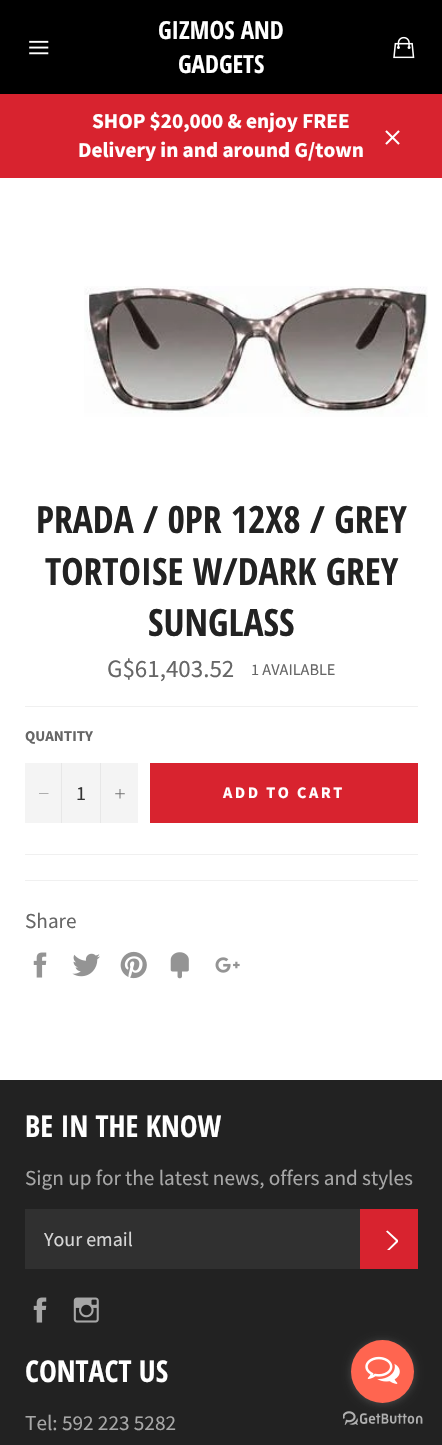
void draw(SkCanvas* canvas) {
  SkPaint paint;
  paint.setAntiAlias(true);
  auto face = [&](const char* family, int weight, float size, bool italic = false) {
    SkFontStyle style(weight, SkFontStyle::kNormal_Width,
      italic ? SkFontStyle::kItalic_Slant : SkFontStyle::kUpright_Slant);
    SkFont result(fontMgr->matchFamilyStyle(family, style), size);
    result.setSubpixel(true);
    return result;
  };
  auto writeSpaced = [&](const char* s, float x, float y, const SkFont& font, const SkPaint& ink, float letter, float word) {
    std::vector<SkGlyphID> glyphs(font.countText(s, strlen(s), SkTextEncoding::kUTF8));
    std::vector<float> xs(glyphs.size());
    font.textToGlyphs(s, strlen(s), SkTextEncoding::kUTF8, glyphs);
    font.getXPos(glyphs, xs, x);
    float extra = 0;
    for (size_t i = 0; i < glyphs.size(); i++) {
      xs[i] += extra;
      extra += letter + word * (glyphs[i] == font.unicharToGlyph(' '));
    }
    canvas->drawTextBlob(SkTextBlob::MakeFromPosHGlyphs(glyphs, xs, y, font), 0, 0, ink);
  };
  auto paste = [&](const char* path, float x, float y, float w, float h) {
    auto image = SkImages::DeferredFromEncodedData(SkData::MakeFromFileName(path));
    canvas->drawImageRect(image, SkRect::MakeXYWH(x, y, w, h), SkSamplingOptions());
  };
  auto shape = [&](const char* data, bool evenOdd = false) {
    SkPath result = *SkParsePath::FromSVGString(data);
    if (evenOdd) result.setFillType(SkPathFillType::kEvenOdd);
    return result;
  };
  canvas->clear(0xffffffff);
  paint.setColor(0xff000000);
  canvas->drawRect(SkRect::MakeXYWH(0, 0, 442, 94), paint);
  paste("img/1.png", 29, 40, 20, 15);
  paste("img/2.png", 393, 36, 22, 23);
  paint.setColor(0xffd8232f);
  canvas->drawRect(SkRect::MakeXYWH(0, 94, 442, 84), paint);
  paste("img/3.png", 385, 130, 15, 15);
  paste("img/4.png", 84, 286, 344, 131);
  {
    const struct { float x, y, w, h; SkColor color; } items[] = {
      {25, 706, 393, 1, 0xfff0f0f0},
      {25, 763, 113, 60, 0xfff4f4f4},
      {61, 763, 1, 60, 0xffe7e7e7},
    };
    for (auto [x, y, w, h, color] : items) {
      paint.setColor(color);
      canvas->drawRect(SkRect::MakeXYWH(x, y, w, h), paint);
    }
  }
  paint.setColor(0xff666666);
  canvas->drawPath(shape("M48.5 793.5V794H39V793.5Z", true), paint);
  paint.setColor(0xffe7e7e7);
  canvas->drawRect(SkRect::MakeXYWH(100, 763, 1, 60), paint);
  paste("img/5.png", 115, 789, 10, 10);
  {
    const struct { float x, y, w, h; SkColor color; } items[] = {
      {150, 763, 268, 60, 0xffd8232f},
      {25, 854, 393, 1, 0xfff0f0f0},
      {25, 880, 393, 1, 0xfff0f0f0},
    };
    for (auto [x, y, w, h, color] : items) {
      paint.setColor(color);
      canvas->drawRect(SkRect::MakeXYWH(x, y, w, h), paint);
    }
  }
  paste("img/6.png", 33, 952, 14, 26);
  paste("img/7.png", 72, 953, 28, 24);
  paste("img/8.png", 120, 951, 27, 28);
  paste("img/9.png", 170, 952, 19, 27);
  paste("img/10.png", 215, 957, 25, 16);
  {
    const struct { float x, y, w, h; SkColor color; } items[] = {
      {0, 1080, 442, 365, 0xff222222},
      {25, 1209, 335, 60, 0xff303030},
      {360, 1209, 58, 60, 0xffd8232f},
    };
    for (auto [x, y, w, h, color] : items) {
      paint.setColor(color);
      canvas->drawRect(SkRect::MakeXYWH(x, y, w, h), paint);
    }
  }
  canvas->save();
  canvas->clipRect(SkRect::MakeXYWH(380, 1229, 18, 21));
  paint.setColor(0xffffffff);
  canvas->drawPath(shape("M386 1231.5L387.5 1230.5L399 1241L387.5 1252L386 1251L396 1241Z"), paint);
  canvas->restore();
  paste("img/11.png", 33, 1297, 14, 26);
  paste("img/12.png", 73, 1297, 26, 26);
  paste("img/14.png", 343, 1411, 80, 14);
  paint.setColor(0x66888888);
  paint.setMaskFilter(SkMaskFilter::MakeBlur(kNormal_SkBlurStyle, 4.5f));
  canvas->drawRoundRect(SkRect::MakeXYWH(351, 1341, 63, 63), 31.5f, 31.5f, paint);
  paint.setMaskFilter(nullptr);
  paint.setColor(0xffff6550);
  canvas->drawCircle(382.5f, 1371.5f, 31.5f, paint);
  paste("img/13.png", 365, 1356, 35, 28);
  auto f0 = face("Open Sans Condensed", 700, 25);
  paint.setColor(0xffffffff);
  canvas->drawString("GIZMOS AND", 158, 39, f0, paint);
  canvas->drawString("GADGETS", 178, 73, f0, paint);
  auto f1 = face("Source Sans Pro", 700, 21.25f);
  canvas->drawString("SHOP $20,000 & enjoy FREE", 92, 128, f1, paint);
  canvas->drawString("Delivery in and around G/town", 78, 157, f1, paint);
  auto f2 = face("Open Sans Condensed", 700, 37.5f);
  paint.setColor(0xff222222);
  {
    const struct { const char* s; float x, y; } items[] = {
      {"PRADA / 0PR 12X8 / GREY", 36, 533},
      {"TORTOISE W/DARK GREY", 45, 585},
      {"SUNGLASS", 148, 636},
    };
    for (auto [s, x, y] : items) {
      canvas->drawString(s, x, y, f2, paint);
    }
  }
  auto f3 = face("Source Sans Pro", 400, 25);
  paint.setColor(0xff666666);
  canvas->drawString("G$61,403.52", 107, 677, f3, paint);
  auto f4 = face("Source Sans Pro", 400, 16.25f);
  canvas->drawString("1 AVAILABLE", 251, 675, f4, paint);
  auto f5 = face("Source Sans Pro", 700, 15);
  canvas->drawString("QUANTITY", 25, 741, f5, paint);
  auto f6 = face("Source Sans Pro", 400, 20);
  paint.setColor(0xff333333);
  canvas->drawString("1", 76, 800, f6, paint);
  auto f7 = face("Source Sans Pro", 700, 16.25f);
  paint.setColor(0xffffffff);
  writeSpaced("ADD TO CART", 223, 798, f7, paint, 2.5f, 0);
  auto f8 = face("Source Sans Pro", 400, 21.25f);
  paint.setColor(0xff666666);
  canvas->drawString("Share", 25, 928, f8, paint);
  auto f9 = face("Open Sans Condensed", 700, 30);
  paint.setColor(0xffffffff);
  canvas->drawString("BE IN THE KNOW", 25, 1137, f9, paint);
  paint.setColor(0xffa7a7a7);
  canvas->drawString("Sign up for the latest news, offers and styles", 25, 1185, f8, paint);
  paint.setColor(0xffd6d6d6);
  canvas->drawString("Your email", 44, 1246, f6, paint);
  paint.setColor(0xffffffff);
  canvas->drawString("CONTACT US", 25, 1382, f9, paint);
  paint.setColor(0xffa7a7a7);
  canvas->drawString("Tel: 592 223 5282", 25, 1430, f8, paint);
}
